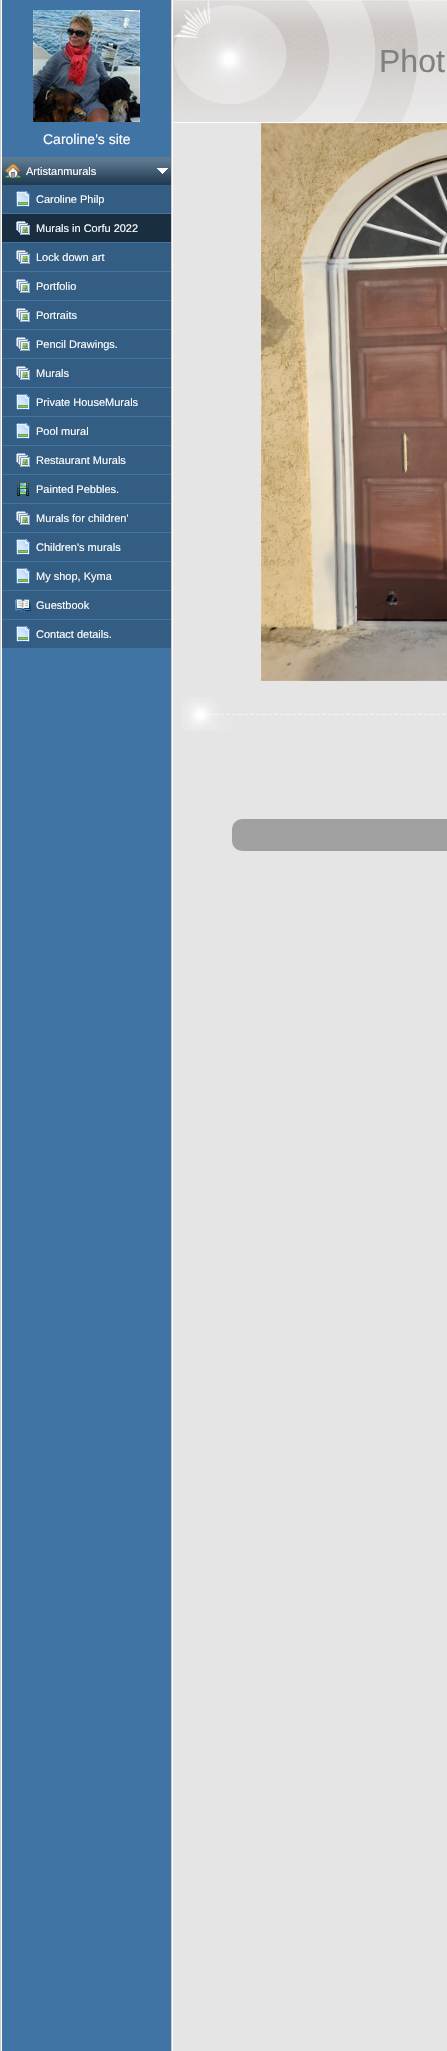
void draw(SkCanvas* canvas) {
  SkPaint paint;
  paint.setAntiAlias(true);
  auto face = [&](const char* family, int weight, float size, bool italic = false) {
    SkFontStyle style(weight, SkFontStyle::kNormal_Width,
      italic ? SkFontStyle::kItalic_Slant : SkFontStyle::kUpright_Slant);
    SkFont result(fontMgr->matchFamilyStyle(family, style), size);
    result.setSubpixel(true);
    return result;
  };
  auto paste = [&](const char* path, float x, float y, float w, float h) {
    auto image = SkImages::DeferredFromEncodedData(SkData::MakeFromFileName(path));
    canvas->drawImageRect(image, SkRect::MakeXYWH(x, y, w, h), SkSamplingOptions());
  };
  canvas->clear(0xffffffff);
  {
    const struct { float x, y, w, h; SkColor color; } items[] = {
      {0, 0, 1, 2051, 0xffcccccc},
      {171, 0, 1, 2051, 0xffcccccc},
      {173, 123, 274, 1928, 0xffe5e5e5},
    };
    for (auto [x, y, w, h, color] : items) {
      paint.setColor(color);
      canvas->drawRect(SkRect::MakeXYWH(x, y, w, h), paint);
    }
  }
  paste("img/1.png", 173, 0, 274, 122);
  paste("img/2.png", 261, 123, 186, 558);
  paste("img/3.png", 181, 697, 265, 34);
  paint.setColor(0xffa0a0a0);
  canvas->drawRoundRect(SkRect::MakeXYWH(232, 819, 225, 32), 10, 10, paint);
  paint.setColor(0xff4074a4);
  canvas->drawRect(SkRect::MakeXYWH(2, 0, 169, 2051), paint);
  paste("img/4.png", 33, 10, 107, 112);
  paste("img/5.png", 2, 157, 169, 28);
  paste("img/6.png", 5, 164, 16, 14);
  paste("img/7.png", 157, 168, 11, 6);
  paint.setColor(0xff335d83);
  canvas->drawRect(SkRect::MakeXYWH(2, 185, 169, 28), paint);
  paste("img/8.png", 16, 191, 14, 16);
  paint.setColor(0xff1a2e42);
  canvas->drawRect(SkRect::MakeXYWH(2, 214, 169, 28), paint);
  paste("img/9.png", 16, 221, 14, 14);
  paint.setColor(0xff335d83);
  canvas->drawRect(SkRect::MakeXYWH(2, 243, 169, 28), paint);
  paste("img/10.png", 16, 250, 14, 14);
  canvas->drawRect(SkRect::MakeXYWH(2, 272, 169, 28), paint);
  paste("img/10.png", 16, 279, 14, 14);
  canvas->drawRect(SkRect::MakeXYWH(2, 301, 169, 28), paint);
  paste("img/10.png", 16, 308, 14, 14);
  canvas->drawRect(SkRect::MakeXYWH(2, 330, 169, 28), paint);
  paste("img/10.png", 16, 337, 14, 14);
  canvas->drawRect(SkRect::MakeXYWH(2, 359, 169, 28), paint);
  paste("img/10.png", 16, 366, 14, 14);
  canvas->drawRect(SkRect::MakeXYWH(2, 388, 169, 28), paint);
  paste("img/8.png", 16, 394, 14, 16);
  canvas->drawRect(SkRect::MakeXYWH(2, 417, 169, 28), paint);
  paste("img/8.png", 16, 423, 14, 16);
  canvas->drawRect(SkRect::MakeXYWH(2, 446, 169, 28), paint);
  paste("img/10.png", 16, 453, 14, 14);
  canvas->drawRect(SkRect::MakeXYWH(2, 475, 169, 28), paint);
  paste("img/11.png", 17, 481, 12, 15);
  canvas->drawRect(SkRect::MakeXYWH(2, 504, 169, 28), paint);
  paste("img/10.png", 16, 511, 14, 14);
  canvas->drawRect(SkRect::MakeXYWH(2, 533, 169, 28), paint);
  paste("img/8.png", 16, 539, 14, 16);
  canvas->drawRect(SkRect::MakeXYWH(2, 562, 169, 28), paint);
  paste("img/8.png", 16, 568, 14, 16);
  canvas->drawRect(SkRect::MakeXYWH(2, 591, 169, 28), paint);
  paste("img/12.png", 15, 599, 16, 13);
  canvas->drawRect(SkRect::MakeXYWH(2, 620, 169, 28), paint);
  paste("img/8.png", 16, 626, 14, 16);
  auto f0 = face("Liberation Sans", 400, 32);
  paint.setColor(0xff808080);
  canvas->drawString("Phot", 379, 72, f0, paint);
  auto f1 = face("Liberation Sans", 400, 14);
  paint.setColor(0xffffffff);
  canvas->drawString("Caroline's site", 43, 144, f1, paint);
  auto f2 = face("Liberation Sans", 400, 11);
  {
    const struct { const char* s; float x, y; } items[] = {
      {"Artistanmurals", 26, 175},
      {"Caroline Philp", 36, 203},
      {"Murals in Corfu 2022", 36, 232},
      {"Lock down art", 36, 261},
      {"Portfolio", 36, 290},
      {"Portraits", 36, 319},
      {"Pencil Drawings.", 36, 348},
      {"Murals", 36, 377},
      {"Private HouseMurals", 36, 406},
      {"Pool mural", 36, 435},
      {"Restaurant Murals", 36, 464},
      {"Painted Pebbles.", 36, 493},
      {"Murals for children'", 36, 522},
      {"Children's murals", 36, 551},
      {"My shop, Kyma", 36, 580},
      {"Guestbook", 36, 609},
      {"Contact details.", 36, 638},
    };
    for (auto [s, x, y] : items) {
      canvas->drawString(s, x, y, f2, paint);
    }
  }
}
